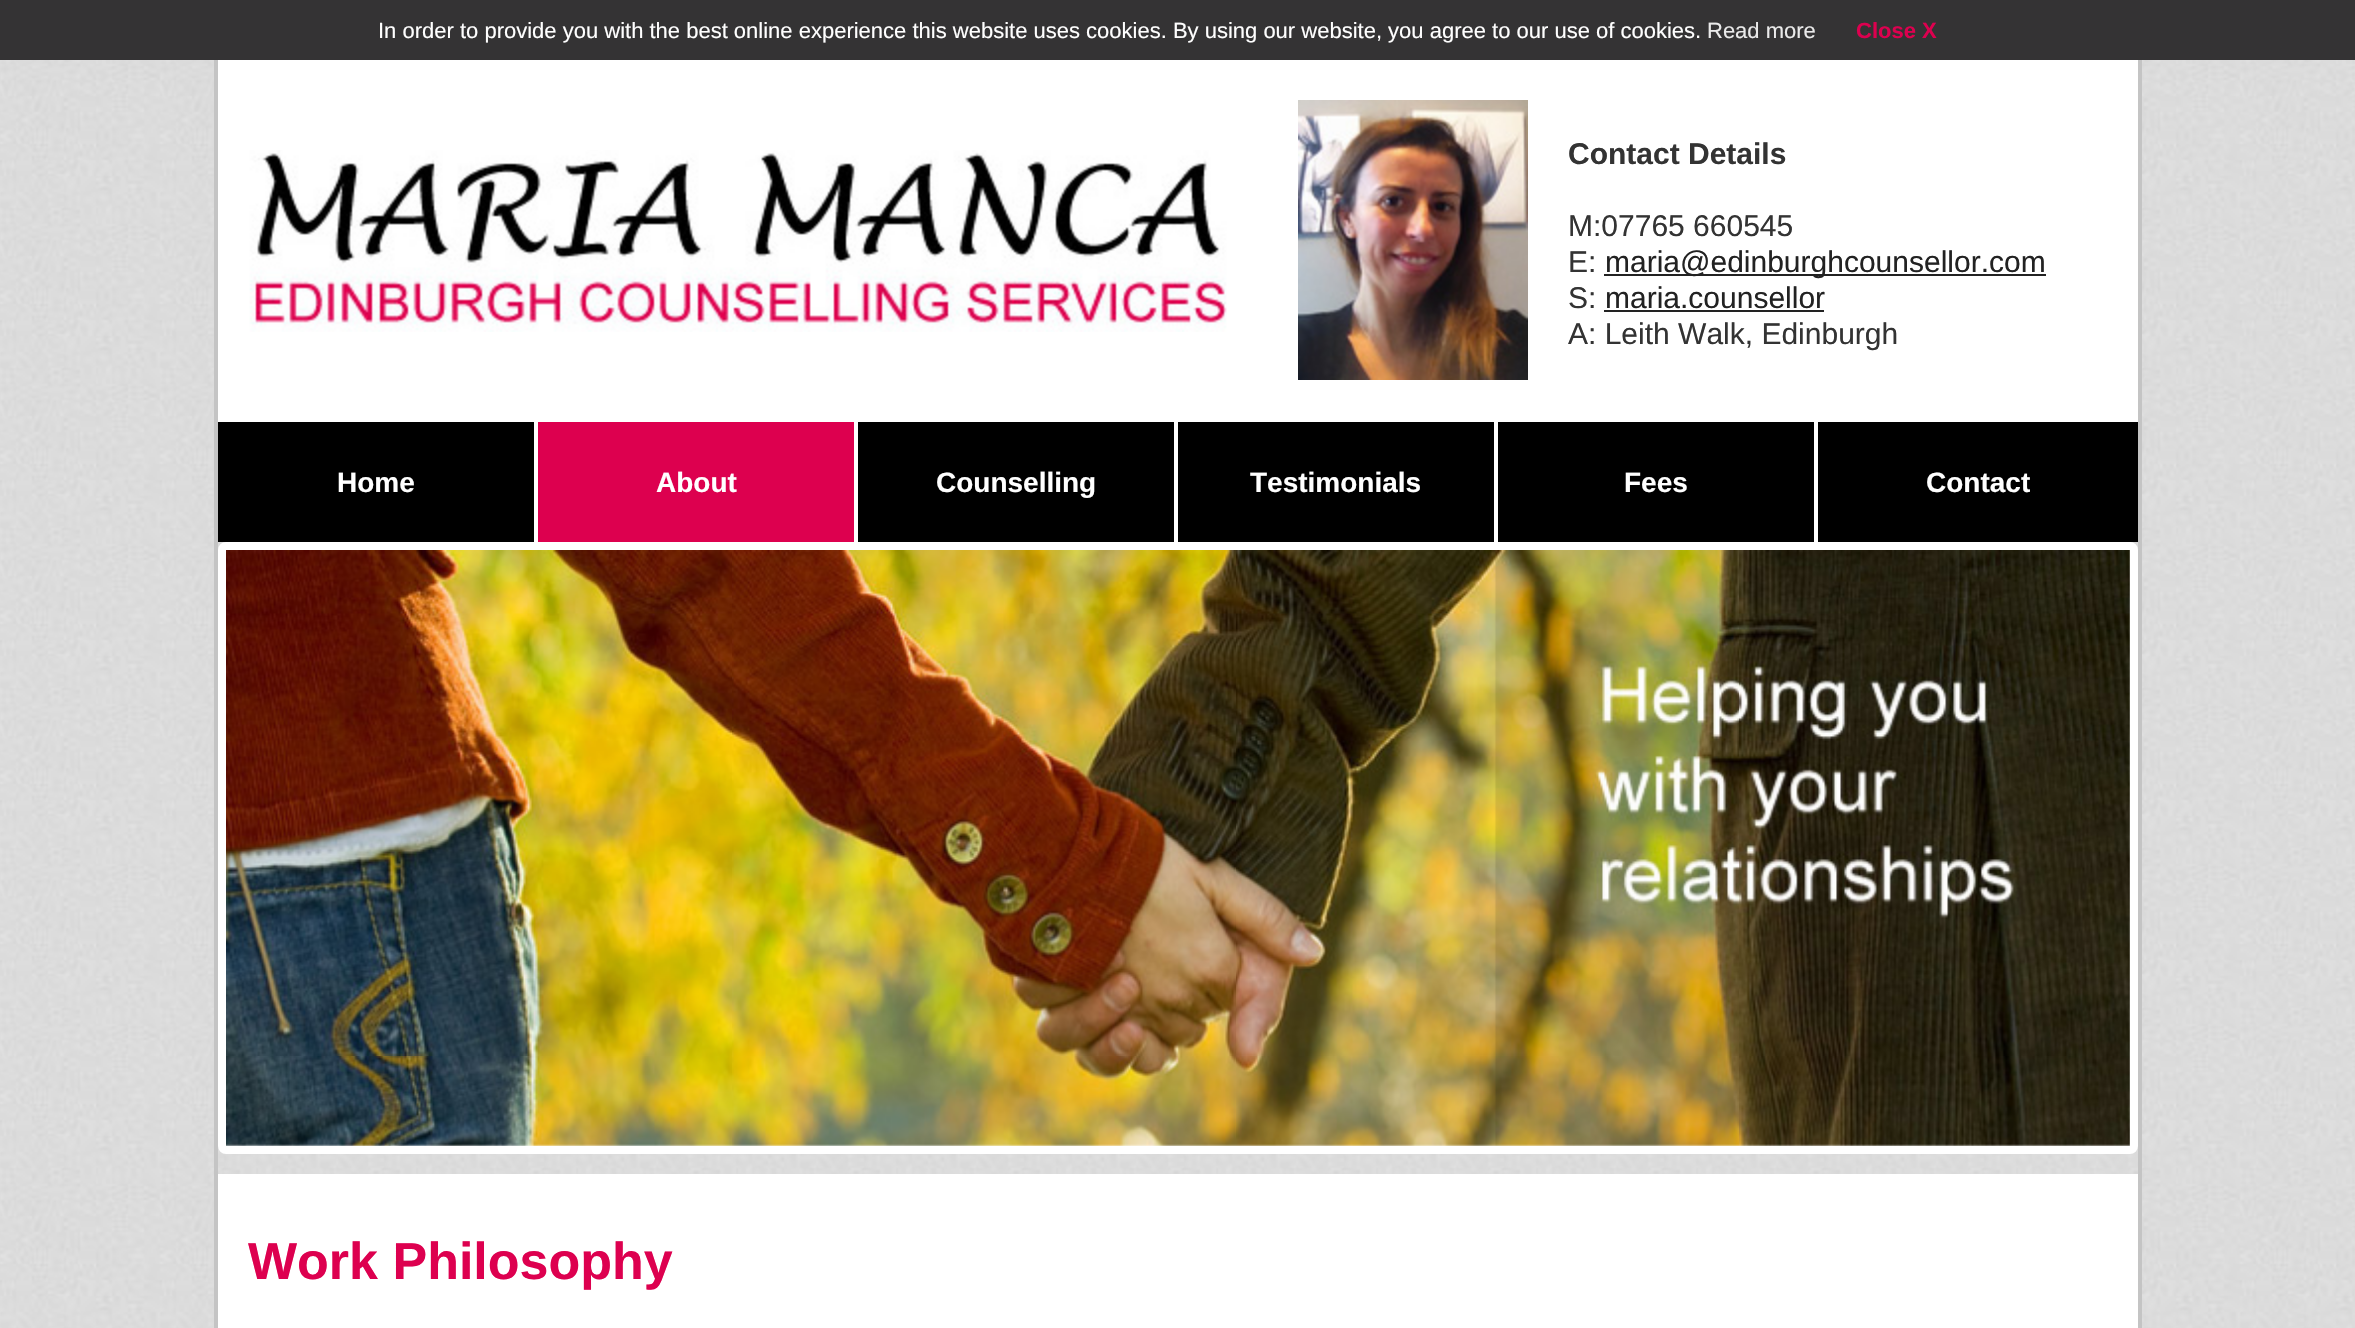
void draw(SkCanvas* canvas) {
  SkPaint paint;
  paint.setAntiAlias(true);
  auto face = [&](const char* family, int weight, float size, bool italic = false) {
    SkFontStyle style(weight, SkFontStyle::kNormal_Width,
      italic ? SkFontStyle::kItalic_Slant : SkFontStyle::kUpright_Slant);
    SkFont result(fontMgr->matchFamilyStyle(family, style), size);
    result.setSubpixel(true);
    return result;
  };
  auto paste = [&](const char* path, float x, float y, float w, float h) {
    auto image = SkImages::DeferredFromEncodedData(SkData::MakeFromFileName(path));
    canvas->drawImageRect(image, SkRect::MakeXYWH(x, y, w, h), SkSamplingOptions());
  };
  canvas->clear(0xffffffff);
  paste("img/1.png", 0, 60, 2355, 1268);
  {
    const struct { float x, y, w, h; SkColor color; } items[] = {
      {0, 0, 2355, 60, 0xff343334},
      {2138, 60, 4, 1268, 0xffc4c4c4},
      {214, 60, 4, 1268, 0xffc4c4c4},
      {218, 60, 1920, 362, 0xffffffff},
    };
    for (auto [x, y, w, h, color] : items) {
      paint.setColor(color);
      canvas->drawRect(SkRect::MakeXYWH(x, y, w, h), paint);
    }
  }
  paste("img/2.png", 249, 150, 978, 182);
  paste("img/3.png", 1298, 100, 230, 280);
  {
    const struct { float x, y, w, h; SkColor color; } items[] = {
      {1604, 274, 442, 2, 0xff222222},
      {1604, 310, 220, 2, 0xff222222},
      {218, 422, 316, 120, 0xff000000},
      {534, 422, 4, 120, 0xffffffff},
      {538, 422, 316, 120, 0xffdd004f},
      {854, 422, 4, 120, 0xffffffff},
      {858, 422, 316, 120, 0xff000000},
      {1174, 422, 4, 120, 0xffffffff},
      {1178, 422, 316, 120, 0xff000000},
      {1494, 422, 4, 120, 0xffffffff},
      {1498, 422, 316, 120, 0xff000000},
      {1814, 422, 4, 120, 0xffffffff},
      {1818, 422, 320, 120, 0xff000000},
    };
    for (auto [x, y, w, h, color] : items) {
      paint.setColor(color);
      canvas->drawRect(SkRect::MakeXYWH(x, y, w, h), paint);
    }
  }
  paint.setColor(0xffffffff);
  canvas->drawRoundRect(SkRect::MakeXYWH(222, 546, 1912, 604), 4, 4, paint);
  paint.setStroke(true);
  paint.setStrokeWidth(8);
  canvas->drawRoundRect(SkRect::MakeXYWH(222, 546, 1912, 604), 4, 4, paint);
  paste("img/4.png", 226, 550, 1904, 596);
  paint.setStroke(false);
  canvas->drawRect(SkRect::MakeXYWH(218, 1174, 1920, 154), paint);
  auto f0 = face("Liberation Sans", 400, 22);
  canvas->drawString("In order to provide you with the best online experience this website uses cookies. By using our website, you agree to our use of cookies.", 378, 38, f0, paint);
  paint.setColor(0xffeaeaea);
  canvas->drawString("Read more", 1707, 38, f0, paint);
  auto f1 = face("Liberation Sans", 700, 22);
  paint.setColor(0xffdd004f);
  canvas->drawString("Close X", 1856, 38, f1, paint);
  auto f2 = face("Liberation Sans", 700, 30);
  paint.setColor(0xff333333);
  canvas->drawString("Contact Details", 1568, 164, f2, paint);
  auto f3 = face("Liberation Sans", 400, 30);
  canvas->drawString("M:07765 660545", 1568, 236, f3, paint);
  canvas->drawString("E:", 1568, 272, f3, paint);
  paint.setColor(0xff222222);
  canvas->drawString("maria@edinburghcounsellor.com", 1605, 272, f3, paint);
  paint.setColor(0xff333333);
  canvas->drawString("S:", 1568, 308, f3, paint);
  paint.setColor(0xff222222);
  canvas->drawString("maria.counsellor", 1605, 308, f3, paint);
  paint.setColor(0xff333333);
  canvas->drawString("A: Leith Walk, Edinburgh", 1568, 344, f3, paint);
  auto f4 = face("Liberation Sans", 700, 28);
  paint.setColor(0xffffffff);
  {
    const struct { const char* s; float x, y; } items[] = {
      {"Home", 337, 492},
      {"About", 656, 492},
      {"Counselling", 936, 492},
      {"Testimonials", 1250, 492},
      {"Fees", 1624, 492},
      {"Contact", 1926, 492},
    };
    for (auto [s, x, y] : items) {
      canvas->drawString(s, x, y, f4, paint);
    }
  }
  auto f5 = face("Liberation Sans", 700, 52);
  paint.setColor(0xffdd004f);
  canvas->drawString("Work Philosophy", 248, 1279, f5, paint);
}
